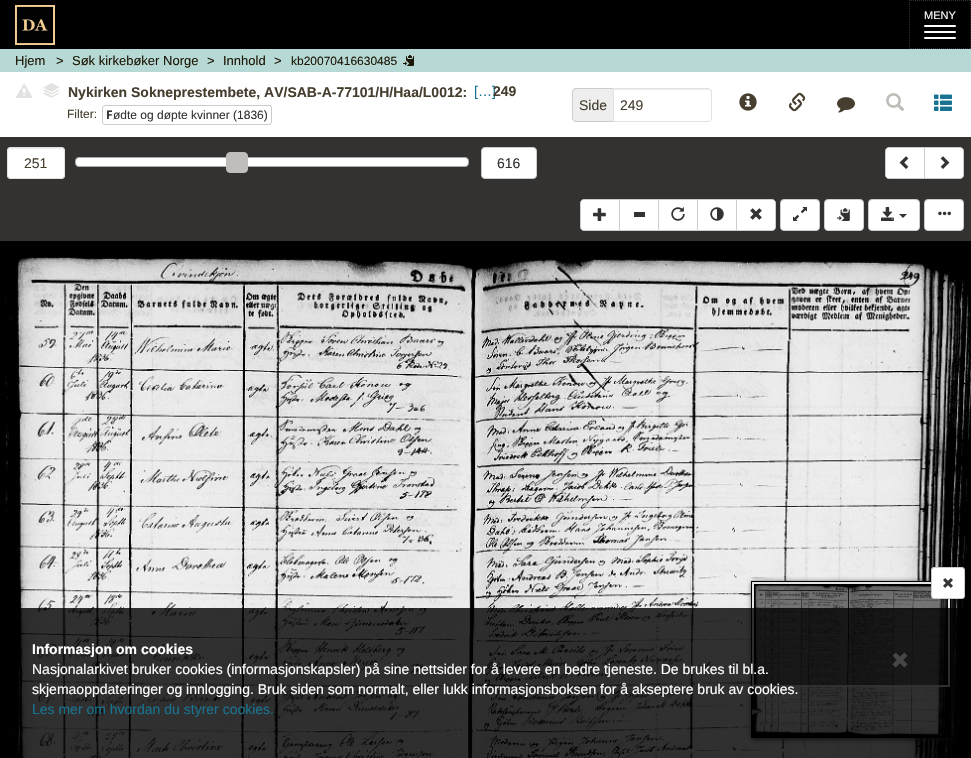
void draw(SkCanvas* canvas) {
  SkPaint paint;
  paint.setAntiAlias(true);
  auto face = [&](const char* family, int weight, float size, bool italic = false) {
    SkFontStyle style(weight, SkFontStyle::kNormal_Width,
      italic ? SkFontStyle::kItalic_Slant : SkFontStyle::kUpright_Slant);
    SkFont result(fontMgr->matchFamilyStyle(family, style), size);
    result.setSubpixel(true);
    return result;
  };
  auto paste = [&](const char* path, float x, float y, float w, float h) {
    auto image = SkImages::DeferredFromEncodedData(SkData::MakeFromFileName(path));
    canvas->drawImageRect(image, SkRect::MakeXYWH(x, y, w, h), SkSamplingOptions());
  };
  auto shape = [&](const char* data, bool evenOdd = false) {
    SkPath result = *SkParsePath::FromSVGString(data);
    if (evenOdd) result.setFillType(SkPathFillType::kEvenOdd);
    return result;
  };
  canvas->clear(0xffb6d9d6);
  paint.setColor(0xff000000);
  canvas->drawRect(SkRect::MakeXYWH(0, 0, 971, 49), paint);
  paste("img/1.png", 15, 5, 40, 40);
  paint.setStroke(true);
  paint.setStrokeWidth(1);
  paint.setColor(0xff333333);
  paint.setPathEffect(SkDashPathEffect::Make({{1, 1}}, 0));
  canvas->drawPath(shape("M909 .5H971M970.5 0V49M909 48.5H971M909.5 0V49"), paint);
  paint.setPathEffect(nullptr);
  paint.setStroke(false);
  paint.setColor(0xffffffff);
  canvas->drawRoundRect(SkRect::MakeXYWH(924, 25, 32, 2), 1, 1, paint);
  canvas->drawRoundRect(SkRect::MakeXYWH(924, 31, 32, 2), 1, 1, paint);
  canvas->drawRoundRect(SkRect::MakeXYWH(924, 37, 32, 2), 1, 1, paint);
  paste("img/2.png", 403, 55, 11, 11);
  canvas->drawRect(SkRect::MakeXYWH(0, 72, 971, 65), paint);
  paste("img/3.png", 16, 83, 17, 15);
  paste("img/8.png", 43, 92, 17, 6);
  paste("img/7.png", 45, 89, 14, 7);
  paste("img/6.png", 43, 89, 17, 6);
  paste("img/5.png", 45, 86, 14, 7);
  paste("img/4.png", 43, 83, 17, 9);
  canvas->drawRect(SkRect::MakeXYWH(493, 86, 3, 10), paint);
  paint.setStroke(true);
  paint.setColor(0xffcccccc);
  canvas->drawRoundRect(SkRect::MakeXYWH(102.5f, 105.5f, 169, 19), 2.5f, 2.5f, paint);
  paint.setStroke(false);
  paint.setColor(0xffeeeeee);
  canvas->drawPath(shape("M576 88H613V122H576C574 122 572 120 572 118V92C572 90 574 88 576 88Z"), paint);
  paint.setColor(0xffcccccc);
  canvas->drawPath(shape("M576 88H613V122H576C574 122 572 120 572 118V92C572 90 574 88 576 88ZM576 89H613V121H576C574 121 573 120 573 118V92C573 90 574 89 576 89Z", true), paint);
  paint.setColor(0xffececec);
  canvas->drawPath(shape("M614 90H708C710 90 711 91 711 93V92C711 90 710 89 708 89H614Z"), paint);
  paint.setStroke(true);
  paint.setColor(0xffe3e2e0);
  canvas->drawPath(shape("M613.5 88.5H708C710 88.5 711.5 90 711.5 92V118C711.5 120 710 121.5 708 121.5H613.5Z"), paint);
  paste("img/9.png", 739, 93, 18, 18);
  paste("img/10.png", 788, 92, 18, 20);
  paste("img/11.png", 837, 97, 18, 16);
  paste("img/12.png", 886, 93, 18, 18);
  paste("img/13.png", 934, 94, 18, 17);
  paint.setStroke(false);
  paint.setColor(0xff333231);
  canvas->drawRect(SkRect::MakeXYWH(0, 137, 971, 104), paint);
  paint.setColor(0xffffffff);
  canvas->drawRoundRect(SkRect::MakeXYWH(7, 147, 58, 32), 4, 4, paint);
  paint.setColor(0xffececec);
  canvas->drawPath(shape("M11 149H61C63 149 64 150 64 152C64 146 57 148 53 148H19C15 148 8 146 8 152C8 150 9 149 11 149Z"), paint);
  paint.setStroke(true);
  paint.setColor(0xffe3e2e0);
  canvas->drawRoundRect(SkRect::MakeXYWH(7.5f, 147.5f, 57, 31), 3.5f, 3.5f, paint);
  paint.setStroke(false);
  paint.setColor(0xffffffff);
  canvas->drawRoundRect(SkRect::MakeXYWH(75.5f, 157.5f, 393, 9), 3.5f, 3.5f, paint);
  paint.setStroke(true);
  paint.setColor(0xffaaaaaa);
  canvas->drawRoundRect(SkRect::MakeXYWH(75.5f, 157.5f, 393, 9), 3.5f, 3.5f, paint);
  paint.setStroke(false);
  paint.setColor(0xffbfbebd);
  canvas->drawRoundRect(SkRect::MakeXYWH(226.5f, 152.5f, 21, 20), 3.5f, 3.5f, paint);
  paint.setStroke(true);
  canvas->drawRoundRect(SkRect::MakeXYWH(226.5f, 152.5f, 21, 20), 3.5f, 3.5f, paint);
  paint.setStroke(false);
  paint.setColor(0xffffffff);
  canvas->drawRoundRect(SkRect::MakeXYWH(481.5f, 147.5f, 55, 31), 3.5f, 3.5f, paint);
  paint.setStroke(true);
  paint.setColor(0xffcccccc);
  canvas->drawRoundRect(SkRect::MakeXYWH(481.5f, 147.5f, 55, 31), 3.5f, 3.5f, paint);
  paint.setStroke(false);
  paint.setColor(0xffffffff);
  canvas->drawPath(shape("M889 147.5H924.5V178.5H889C887 178.5 885.5 177 885.5 175V151C885.5 149 887 147.5 889 147.5Z"), paint);
  paint.setStroke(true);
  paint.setColor(0xffcccccc);
  canvas->drawPath(shape("M889 147.5H924.5V178.5H889C887 178.5 885.5 177 885.5 175V151C885.5 149 887 147.5 889 147.5Z"), paint);
  paste("img/14.png", 899, 156, 10, 13);
  paint.setStroke(false);
  paint.setColor(0xffffffff);
  canvas->drawPath(shape("M924.5 147.5H960C962 147.5 963.5 149 963.5 151V175C963.5 177 962 178.5 960 178.5H924.5Z"), paint);
  paint.setStroke(true);
  paint.setColor(0xffcccccc);
  canvas->drawPath(shape("M924.5 147.5H960C962 147.5 963.5 149 963.5 151V175C963.5 177 962 178.5 960 178.5H924.5Z"), paint);
  paste("img/15.png", 940, 156, 10, 13);
  paint.setStroke(false);
  paint.setColor(0xffffffff);
  canvas->drawPath(shape("M584 199.5H619.5V230.5H584C582 230.5 580.5 229 580.5 227V203C580.5 201 582 199.5 584 199.5Z"), paint);
  paint.setStroke(true);
  paint.setColor(0xffcccccc);
  canvas->drawPath(shape("M584 199.5H619.5V230.5H584C582 230.5 580.5 229 580.5 227V203C580.5 201 582 199.5 584 199.5Z"), paint);
  paste("img/16.png", 593, 208, 13, 13);
  paint.setStroke(false);
  paint.setColor(0xffffffff);
  canvas->drawRect(SkRect::MakeXYWH(619.5f, 199.5f, 39, 31), paint);
  paint.setStroke(true);
  paint.setColor(0xffcccccc);
  canvas->drawRect(SkRect::MakeXYWH(619.5f, 199.5f, 39, 31), paint);
  paint.setStroke(false);
  paint.setColor(0xff333333);
  canvas->drawRect(SkRect::MakeXYWH(634, 212, 11, 5), paint);
  paint.setColor(0xffffffff);
  canvas->drawRect(SkRect::MakeXYWH(658.5f, 199.5f, 39, 31), paint);
  paint.setStroke(true);
  paint.setColor(0xffcccccc);
  canvas->drawRect(SkRect::MakeXYWH(658.5f, 199.5f, 39, 31), paint);
  paste("img/17.png", 671, 207, 14, 14);
  paint.setStroke(false);
  paint.setColor(0xffffffff);
  canvas->drawRect(SkRect::MakeXYWH(697.5f, 199.5f, 39, 31), paint);
  paint.setStroke(true);
  paint.setColor(0xffcccccc);
  canvas->drawRect(SkRect::MakeXYWH(697.5f, 199.5f, 39, 31), paint);
  paste("img/18.png", 710, 207, 14, 14);
  paint.setStroke(false);
  paint.setColor(0xffffffff);
  canvas->drawPath(shape("M736.5 199.5H772C774 199.5 775.5 201 775.5 203V227C775.5 229 774 230.5 772 230.5H736.5Z"), paint);
  paint.setStroke(true);
  paint.setColor(0xffcccccc);
  canvas->drawPath(shape("M736.5 199.5H772C774 199.5 775.5 201 775.5 203V227C775.5 229 774 230.5 772 230.5H736.5Z"), paint);
  paste("img/19.png", 750, 208, 12, 12);
  paint.setStroke(false);
  paint.setColor(0xffffffff);
  canvas->drawRoundRect(SkRect::MakeXYWH(780.5f, 199.5f, 39, 31), 3.5f, 3.5f, paint);
  paint.setStroke(true);
  paint.setColor(0xffcccccc);
  canvas->drawRoundRect(SkRect::MakeXYWH(780.5f, 199.5f, 39, 31), 3.5f, 3.5f, paint);
  paste("img/20.png", 793, 207, 14, 14);
  paint.setStroke(false);
  paint.setColor(0xffffffff);
  canvas->drawRoundRect(SkRect::MakeXYWH(824.5f, 199.5f, 39, 31), 3.5f, 3.5f, paint);
  paint.setStroke(true);
  paint.setColor(0xffcccccc);
  canvas->drawRoundRect(SkRect::MakeXYWH(824.5f, 199.5f, 39, 31), 3.5f, 3.5f, paint);
  paste("img/21.png", 837, 208, 13, 13);
  paint.setStroke(false);
  paint.setColor(0xffffffff);
  canvas->drawRoundRect(SkRect::MakeXYWH(868.5f, 199.5f, 51, 31), 3.5f, 3.5f, paint);
  paint.setStroke(true);
  paint.setColor(0xffcccccc);
  canvas->drawRoundRect(SkRect::MakeXYWH(868.5f, 199.5f, 51, 31), 3.5f, 3.5f, paint);
  paste("img/22.png", 881, 207, 13, 14);
  paint.setStroke(false);
  paint.setColor(0xff333333);
  canvas->drawPath(shape("M899 214H907L903 218Z"), paint);
  paint.setColor(0xffffffff);
  canvas->drawRoundRect(SkRect::MakeXYWH(924.5f, 199.5f, 39, 31), 3.5f, 3.5f, paint);
  paint.setStroke(true);
  paint.setColor(0xffcccccc);
  canvas->drawRoundRect(SkRect::MakeXYWH(924.5f, 199.5f, 39, 31), 3.5f, 3.5f, paint);
  paste("img/23.png", 938, 211, 13, 5);
  paste("img/24.png", 0, 241, 971, 517);
  paint.setStroke(false);
  paint.setColor(0xff323232);
  paint.setMaskFilter(SkMaskFilter::MakeBlur(kNormal_SkBlurStyle, 2.5f));
  canvas->drawRect(SkRect::MakeXYWH(752, 582, 200, 157), paint);
  paint.setMaskFilter(nullptr);
  paint.setStroke(true);
  paint.setColor(0xff000000);
  canvas->drawRect(SkRect::MakeXYWH(751.5f, 581.5f, 199, 156), paint);
  paste("img/26.png", 752, 582, 198, 155);
  paint.setStroke(false);
  paint.setColor(0x80000000);
  canvas->drawRect(SkRect::MakeXYWH(753, 585, 197, 102), paint);
  paint.setStroke(true);
  paint.setStrokeWidth(2);
  paint.setColor(0xe6ffffff);
  canvas->drawRect(SkRect::MakeXYWH(753, 583, 196, 103), paint);
  paint.setStroke(false);
  paint.setColor(0x1a000000);
  paint.setMaskFilter(SkMaskFilter::MakeBlur(kNormal_SkBlurStyle, 0.5f));
  canvas->drawRoundRect(SkRect::MakeXYWH(931, 568, 34, 32), 3, 3, paint);
  paint.setMaskFilter(nullptr);
  paint.setColor(0xffffffff);
  canvas->drawRoundRect(SkRect::MakeXYWH(931.5f, 567.5f, 33, 31), 2.5f, 2.5f, paint);
  paint.setStroke(true);
  paint.setStrokeWidth(1);
  paint.setColor(0xffcccccc);
  canvas->drawRoundRect(SkRect::MakeXYWH(931.5f, 567.5f, 33, 31), 2.5f, 2.5f, paint);
  paste("img/25.png", 943, 578, 10, 10);
  paint.setStroke(false);
  paint.setColor(0xcc000000);
  canvas->drawRect(SkRect::MakeXYWH(10, 608, 953, 150), paint);
  paste("img/27.png", 892, 652, 16, 16);
  auto f0 = face("Liberation Sans", 400, 11);
  paint.setColor(0xffffffff);
  canvas->drawString("MENY", 924, 19, f0, paint);
  auto f1 = face("Liberation Sans", 400, 13);
  paint.setColor(0xff1d1705);
  {
    const struct { const char* s; float x, y; } items[] = {
      {"Hjem", 15, 65},
      {">", 56, 65},
      {"Søk kirkebøker Norge", 72, 65},
      {">", 207, 65},
      {"Innhold", 223, 65},
      {">", 274, 65},
    };
    for (auto [s, x, y] : items) {
      canvas->drawString(s, x, y, f1, paint);
    }
  }
  auto f2 = face("Liberation Sans", 400, 12);
  canvas->drawString("kb20070416630485", 291, 65, f2, paint);
  auto f3 = face("Liberation Sans", 400, 14);
  paint.setColor(0xff177391);
  canvas->drawString("[…]", 474, 96, f3, paint);
  auto f4 = face("Liberation Sans", 700, 14);
  paint.setColor(0xff463e2f);
  canvas->drawString("Nykirken Sokneprestembete, AV/SAB-A-77101/H/Haa/L0012:", 68, 97, f4, paint);
  canvas->drawString("249", 493, 96, f4, paint);
  canvas->drawString("Filter:", 67, 118, f2, paint);
  auto f5 = face("Noto Sans", 700, 12);
  paint.setColor(0xff333333);
  canvas->drawString("F", 106, 119, f5, paint);
  canvas->drawString("ødte og døpte kvinner (1836)", 113, 119, f2, paint);
  paint.setColor(0xff463e2f);
  {
    const struct { const char* s; float x, y; } items[] = {
      {"Side", 579, 110},
      {"249", 620, 110},
      {"251", 24, 168},
    };
    for (auto [s, x, y] : items) {
      canvas->drawString(s, x, y, f3, paint);
    }
  }
  paint.setColor(0xff333333);
  canvas->drawString("616", 497, 168, f3, paint);
  paint.setColor(0xffffffff);
  canvas->drawString("Informasjon om cookies", 32, 654, f4, paint);
  canvas->drawString("Nasjonalarkivet bruker cookies (informasjonskapsler) på sine nettsider for å levere en bedre tjeneste. De brukes til bl.a.", 32, 674, f3, paint);
  canvas->drawString("skjemaoppdateringer og innlogging. Bruk siden som normalt, eller lukk informasjonsboksen for å akseptere bruk av cookies.", 32, 694, f3, paint);
  paint.setColor(0xff177391);
  canvas->drawString("Les mer om hvordan du styrer cookies.", 32, 714, f3, paint);
}
